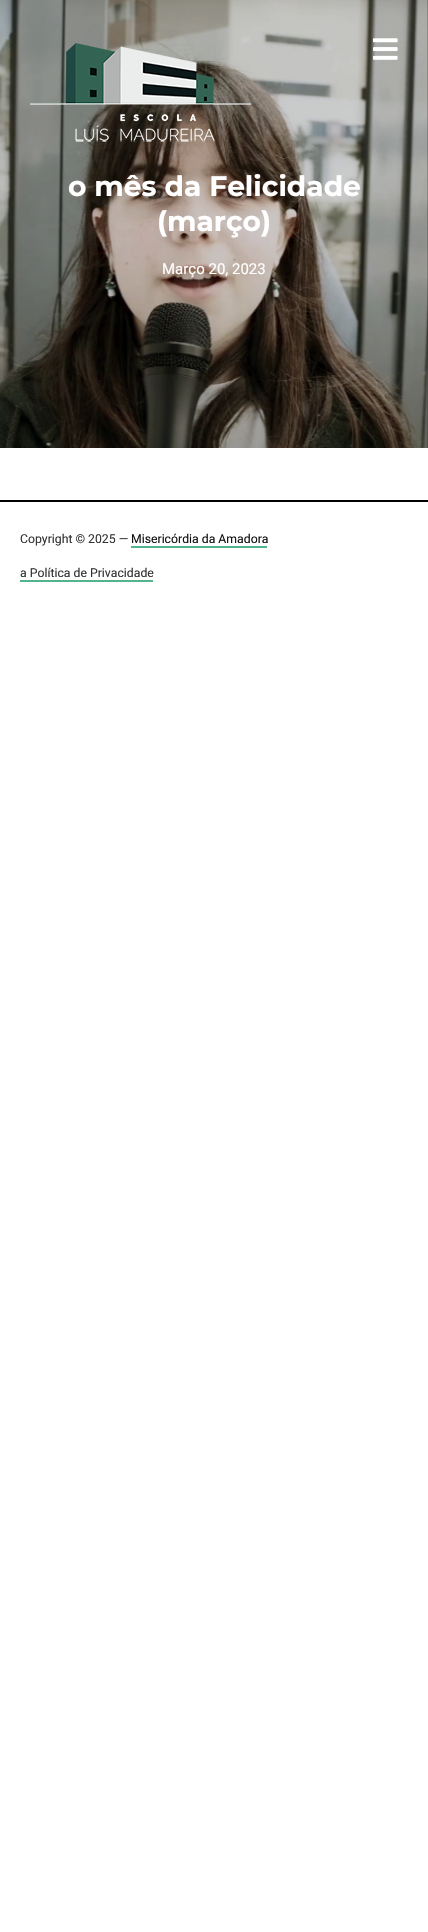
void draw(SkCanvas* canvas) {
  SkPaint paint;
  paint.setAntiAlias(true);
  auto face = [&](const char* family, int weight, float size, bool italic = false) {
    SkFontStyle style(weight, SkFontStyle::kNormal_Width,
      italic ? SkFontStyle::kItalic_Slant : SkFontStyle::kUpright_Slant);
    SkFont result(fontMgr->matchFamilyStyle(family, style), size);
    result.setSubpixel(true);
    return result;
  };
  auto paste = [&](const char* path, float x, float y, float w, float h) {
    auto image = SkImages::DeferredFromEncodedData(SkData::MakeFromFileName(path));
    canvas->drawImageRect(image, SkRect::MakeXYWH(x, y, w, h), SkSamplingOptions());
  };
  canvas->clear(0xffffffff);
  paint.setColor(0xff000000);
  canvas->drawRect(SkRect::MakeXYWH(0, 0, 428, 448), paint);
  paste("img/3.png", 0, 0, 428, 448);
  paste("img/1.png", 30, 43, 221, 99);
  paste("img/2.png", 373, 38, 25, 22);
  {
    const struct { float x, y, w, h; SkColor color; } items[] = {
      {0, 500, 428, 2, 0xff000000},
      {131, 546, 136, 2, 0xff53b38c},
      {20, 580, 133, 2, 0xff53b38c},
    };
    for (auto [x, y, w, h, color] : items) {
      paint.setColor(color);
      canvas->drawRect(SkRect::MakeXYWH(x, y, w, h), paint);
    }
  }
  auto f0 = face("Montserrat", 700, 28.1f);
  paint.setColor(0xffffffff);
  canvas->drawString("o mês da Felicidade", 68, 196, f0, paint);
  canvas->drawString("(março)", 157, 231, f0, paint);
  auto f1 = face("Roboto", 400, 15);
  canvas->drawString("Março 20, 2023", 162, 274, f1, paint);
  auto f2 = face("Roboto", 400, 12.25f);
  paint.setColor(0xff333333);
  canvas->drawString("Copyright © 2025 —", 20, 543, f2, paint);
  paint.setColor(0xff111111);
  canvas->drawString("Misericórdia da Amadora", 131, 543, f2, paint);
  paint.setColor(0xff333333);
  canvas->drawString("a Política de Privacidade", 20, 577, f2, paint);
}
